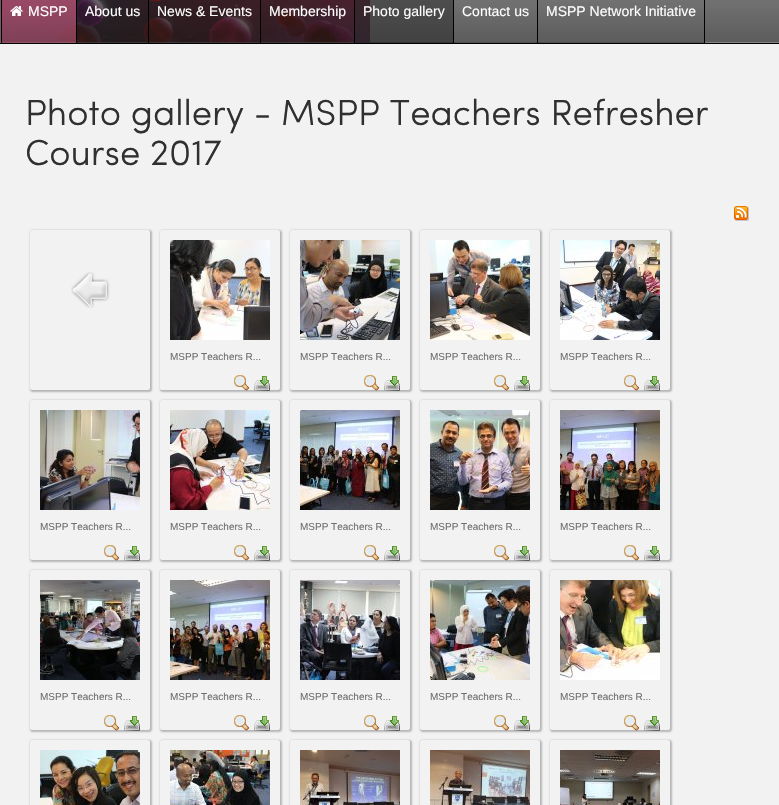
void draw(SkCanvas* canvas) {
  SkPaint paint;
  paint.setAntiAlias(true);
  auto face = [&](const char* family, int weight, float size, bool italic = false) {
    SkFontStyle style(weight, SkFontStyle::kNormal_Width,
      italic ? SkFontStyle::kItalic_Slant : SkFontStyle::kUpright_Slant);
    SkFont result(fontMgr->matchFamilyStyle(family, style), size);
    result.setSubpixel(true);
    return result;
  };
  auto paste = [&](const char* path, float x, float y, float w, float h) {
    auto image = SkImages::DeferredFromEncodedData(SkData::MakeFromFileName(path));
    canvas->drawImageRect(image, SkRect::MakeXYWH(x, y, w, h), SkSamplingOptions());
  };
  auto shape = [&](const char* data, bool evenOdd = false) {
    SkPath result = *SkParsePath::FromSVGString(data);
    if (evenOdd) result.setFillType(SkPathFillType::kEvenOdd);
    return result;
  };
  canvas->clear(0xfff2f2f2);
  paste("img/1.png", 0, 0, 370, 43);
  {
    const SkColor colors[] = {0x331b1b1b, 0xb31b1b1b};
    const float stops[] = {0, 1};
    const SkPoint ends[] = {{390, -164}, {390, 43}};
    paint.setShader(SkGradientShader::MakeLinear(ends, colors, stops, 2, SkTileMode::kClamp));
    paint.setAlpha(255);
  }
  canvas->drawRect(SkRect::MakeXYWH(0, 0, 779, 43), paint);
  paint.setShader(nullptr);
  {
    const struct { float x, y, w, h; SkColor color; } items[] = {
      {0, 42, 779, 1, 0x4de1e1e1},
      {0, 43, 779, 1, 0xff000000},
      {0, 0, 76, 43, 0x7aa84d6c},
    };
    for (auto [x, y, w, h, color] : items) {
      paint.setColor(color);
      canvas->drawRect(SkRect::MakeXYWH(x, y, w, h), paint);
    }
  }
  {
    const SkColor colors[] = {0xe6a84d6c, 0xb3a84d6c, 0x66a84d6c};
    const float stops[] = {0, 0.5f, 1};
    const SkPoint ends[] = {{38, -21}, {39, 43}};
    paint.setShader(SkGradientShader::MakeLinear(ends, colors, stops, 3, SkTileMode::kClamp));
    paint.setAlpha(255);
  }
  canvas->drawRect(SkRect::MakeXYWH(2, 0, 74, 43), paint);
  paint.setShader(nullptr);
  {
    const struct { float x, y, w, h; SkColor color; } items[] = {
      {76, 0, 1, 43, 0xff000000},
      {0, 0, 1, 43, 0x33e1e1e1},
      {1, 0, 1, 43, 0xff000000},
    };
    for (auto [x, y, w, h, color] : items) {
      paint.setColor(color);
      canvas->drawRect(SkRect::MakeXYWH(x, y, w, h), paint);
    }
  }
  paste("img/2.png", 10, 6, 13, 10);
  {
    const struct { float x, y, w, h; SkColor color; } items[] = {
      {77, 42, 71, 1, 0x66000000},
      {148, 0, 1, 43, 0xff000000},
      {149, 42, 111, 1, 0x66000000},
      {260, 0, 1, 43, 0xff000000},
      {261, 42, 93, 1, 0x66000000},
      {354, 0, 1, 43, 0xff000000},
      {355, 0, 98, 43, 0x80282828},
      {355, 42, 98, 1, 0x66000000},
      {453, 0, 1, 43, 0xff000000},
      {454, 42, 83, 1, 0xff4f4f4f},
      {537, 0, 1, 43, 0xff000000},
      {538, 42, 166, 1, 0xff4f4f4f},
      {704, 0, 1, 43, 0xff000000},
    };
    for (auto [x, y, w, h, color] : items) {
      paint.setColor(color);
      canvas->drawRect(SkRect::MakeXYWH(x, y, w, h), paint);
    }
  }
  paste("img/3.png", 734, 206, 15, 15);
  canvas->save();
  canvas->clipPath(shape("M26 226H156V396H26ZM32 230H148C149 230 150 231 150 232V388C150 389 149 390 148 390H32C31 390 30 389 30 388V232C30 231 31 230 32 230Z", true), true);
  paint.setColor(0x80787878);
  paint.setMaskFilter(SkMaskFilter::MakeBlur(kNormal_SkBlurStyle, 1));
  canvas->drawRoundRect(SkRect::MakeXYWH(30, 230, 122, 162), 3, 3, paint);
  paint.setMaskFilter(nullptr);
  canvas->restore();
  paste("img/4.png", 71, 272, 39, 36);
  canvas->save();
  canvas->clipPath(shape("M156 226H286V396H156ZM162 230H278C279 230 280 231 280 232V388C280 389 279 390 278 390H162C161 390 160 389 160 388V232C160 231 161 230 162 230Z", true), true);
  paint.setMaskFilter(SkMaskFilter::MakeBlur(kNormal_SkBlurStyle, 1));
  canvas->drawRoundRect(SkRect::MakeXYWH(160, 230, 122, 162), 3, 3, paint);
  paint.setMaskFilter(nullptr);
  canvas->restore();
  paste("img/5.png", 170, 240, 100, 100);
  paste("img/6.png", 234, 375, 16, 16);
  paste("img/7.png", 254, 376, 16, 15);
  canvas->save();
  canvas->clipPath(shape("M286 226H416V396H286ZM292 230H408C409 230 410 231 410 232V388C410 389 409 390 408 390H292C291 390 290 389 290 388V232C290 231 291 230 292 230Z", true), true);
  paint.setMaskFilter(SkMaskFilter::MakeBlur(kNormal_SkBlurStyle, 1));
  canvas->drawRoundRect(SkRect::MakeXYWH(290, 230, 122, 162), 3, 3, paint);
  paint.setMaskFilter(nullptr);
  canvas->restore();
  paste("img/8.png", 300, 240, 100, 100);
  paste("img/6.png", 364, 375, 16, 16);
  paste("img/7.png", 384, 376, 16, 15);
  canvas->save();
  canvas->clipPath(shape("M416 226H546V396H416ZM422 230H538C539 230 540 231 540 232V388C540 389 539 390 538 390H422C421 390 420 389 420 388V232C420 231 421 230 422 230Z", true), true);
  paint.setMaskFilter(SkMaskFilter::MakeBlur(kNormal_SkBlurStyle, 1));
  canvas->drawRoundRect(SkRect::MakeXYWH(420, 230, 122, 162), 3, 3, paint);
  paint.setMaskFilter(nullptr);
  canvas->restore();
  paste("img/9.png", 430, 240, 100, 100);
  paste("img/6.png", 494, 375, 16, 16);
  paste("img/7.png", 514, 376, 16, 15);
  canvas->save();
  canvas->clipPath(shape("M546 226H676V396H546ZM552 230H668C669 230 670 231 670 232V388C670 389 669 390 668 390H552C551 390 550 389 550 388V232C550 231 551 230 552 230Z", true), true);
  paint.setMaskFilter(SkMaskFilter::MakeBlur(kNormal_SkBlurStyle, 1));
  canvas->drawRoundRect(SkRect::MakeXYWH(550, 230, 122, 162), 3, 3, paint);
  paint.setMaskFilter(nullptr);
  canvas->restore();
  paste("img/10.png", 560, 240, 100, 100);
  paste("img/6.png", 624, 375, 16, 16);
  paste("img/7.png", 644, 376, 16, 15);
  canvas->save();
  canvas->clipPath(shape("M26 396H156V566H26ZM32 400H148C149 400 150 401 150 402V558C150 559 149 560 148 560H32C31 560 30 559 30 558V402C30 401 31 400 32 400Z", true), true);
  paint.setMaskFilter(SkMaskFilter::MakeBlur(kNormal_SkBlurStyle, 1));
  canvas->drawRoundRect(SkRect::MakeXYWH(30, 400, 122, 162), 3, 3, paint);
  paint.setMaskFilter(nullptr);
  canvas->restore();
  paste("img/11.png", 40, 410, 100, 100);
  paste("img/6.png", 104, 545, 16, 16);
  paste("img/7.png", 124, 546, 16, 15);
  canvas->save();
  canvas->clipPath(shape("M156 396H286V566H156ZM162 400H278C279 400 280 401 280 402V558C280 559 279 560 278 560H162C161 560 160 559 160 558V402C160 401 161 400 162 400Z", true), true);
  paint.setMaskFilter(SkMaskFilter::MakeBlur(kNormal_SkBlurStyle, 1));
  canvas->drawRoundRect(SkRect::MakeXYWH(160, 400, 122, 162), 3, 3, paint);
  paint.setMaskFilter(nullptr);
  canvas->restore();
  paste("img/12.png", 170, 410, 100, 100);
  paste("img/6.png", 234, 545, 16, 16);
  paste("img/7.png", 254, 546, 16, 15);
  canvas->save();
  canvas->clipPath(shape("M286 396H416V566H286ZM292 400H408C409 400 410 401 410 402V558C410 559 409 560 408 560H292C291 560 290 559 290 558V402C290 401 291 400 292 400Z", true), true);
  paint.setMaskFilter(SkMaskFilter::MakeBlur(kNormal_SkBlurStyle, 1));
  canvas->drawRoundRect(SkRect::MakeXYWH(290, 400, 122, 162), 3, 3, paint);
  paint.setMaskFilter(nullptr);
  canvas->restore();
  paste("img/13.png", 300, 410, 100, 100);
  paste("img/6.png", 364, 545, 16, 16);
  paste("img/7.png", 384, 546, 16, 15);
  canvas->save();
  canvas->clipPath(shape("M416 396H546V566H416ZM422 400H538C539 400 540 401 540 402V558C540 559 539 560 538 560H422C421 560 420 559 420 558V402C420 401 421 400 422 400Z", true), true);
  paint.setMaskFilter(SkMaskFilter::MakeBlur(kNormal_SkBlurStyle, 1));
  canvas->drawRoundRect(SkRect::MakeXYWH(420, 400, 122, 162), 3, 3, paint);
  paint.setMaskFilter(nullptr);
  canvas->restore();
  paste("img/14.png", 430, 410, 100, 100);
  paste("img/6.png", 494, 545, 16, 16);
  paste("img/7.png", 514, 546, 16, 15);
  canvas->save();
  canvas->clipPath(shape("M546 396H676V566H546ZM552 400H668C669 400 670 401 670 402V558C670 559 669 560 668 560H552C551 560 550 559 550 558V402C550 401 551 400 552 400Z", true), true);
  paint.setMaskFilter(SkMaskFilter::MakeBlur(kNormal_SkBlurStyle, 1));
  canvas->drawRoundRect(SkRect::MakeXYWH(550, 400, 122, 162), 3, 3, paint);
  paint.setMaskFilter(nullptr);
  canvas->restore();
  paste("img/15.png", 560, 410, 100, 100);
  paste("img/6.png", 624, 545, 16, 16);
  paste("img/7.png", 644, 546, 16, 15);
  canvas->save();
  canvas->clipPath(shape("M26 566H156V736H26ZM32 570H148C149 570 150 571 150 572V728C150 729 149 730 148 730H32C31 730 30 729 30 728V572C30 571 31 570 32 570Z", true), true);
  paint.setMaskFilter(SkMaskFilter::MakeBlur(kNormal_SkBlurStyle, 1));
  canvas->drawRoundRect(SkRect::MakeXYWH(30, 570, 122, 162), 3, 3, paint);
  paint.setMaskFilter(nullptr);
  canvas->restore();
  paste("img/16.png", 40, 580, 100, 100);
  paste("img/6.png", 104, 715, 16, 16);
  paste("img/7.png", 124, 716, 16, 15);
  canvas->save();
  canvas->clipPath(shape("M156 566H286V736H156ZM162 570H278C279 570 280 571 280 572V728C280 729 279 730 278 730H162C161 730 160 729 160 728V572C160 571 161 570 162 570Z", true), true);
  paint.setMaskFilter(SkMaskFilter::MakeBlur(kNormal_SkBlurStyle, 1));
  canvas->drawRoundRect(SkRect::MakeXYWH(160, 570, 122, 162), 3, 3, paint);
  paint.setMaskFilter(nullptr);
  canvas->restore();
  paste("img/17.png", 170, 580, 100, 100);
  paste("img/6.png", 234, 715, 16, 16);
  paste("img/7.png", 254, 716, 16, 15);
  canvas->save();
  canvas->clipPath(shape("M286 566H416V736H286ZM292 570H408C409 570 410 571 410 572V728C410 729 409 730 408 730H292C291 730 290 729 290 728V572C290 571 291 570 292 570Z", true), true);
  paint.setMaskFilter(SkMaskFilter::MakeBlur(kNormal_SkBlurStyle, 1));
  canvas->drawRoundRect(SkRect::MakeXYWH(290, 570, 122, 162), 3, 3, paint);
  paint.setMaskFilter(nullptr);
  canvas->restore();
  paste("img/18.png", 300, 580, 100, 100);
  paste("img/6.png", 364, 715, 16, 16);
  paste("img/7.png", 384, 716, 16, 15);
  canvas->save();
  canvas->clipPath(shape("M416 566H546V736H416ZM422 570H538C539 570 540 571 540 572V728C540 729 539 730 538 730H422C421 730 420 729 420 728V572C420 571 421 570 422 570Z", true), true);
  paint.setMaskFilter(SkMaskFilter::MakeBlur(kNormal_SkBlurStyle, 1));
  canvas->drawRoundRect(SkRect::MakeXYWH(420, 570, 122, 162), 3, 3, paint);
  paint.setMaskFilter(nullptr);
  canvas->restore();
  paste("img/19.png", 430, 580, 100, 100);
  paste("img/6.png", 494, 715, 16, 16);
  paste("img/7.png", 514, 716, 16, 15);
  canvas->save();
  canvas->clipPath(shape("M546 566H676V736H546ZM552 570H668C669 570 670 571 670 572V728C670 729 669 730 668 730H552C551 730 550 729 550 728V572C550 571 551 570 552 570Z", true), true);
  paint.setMaskFilter(SkMaskFilter::MakeBlur(kNormal_SkBlurStyle, 1));
  canvas->drawRoundRect(SkRect::MakeXYWH(550, 570, 122, 162), 3, 3, paint);
  paint.setMaskFilter(nullptr);
  canvas->restore();
  paste("img/20.png", 560, 580, 100, 100);
  paste("img/6.png", 624, 715, 16, 16);
  paste("img/7.png", 644, 716, 16, 15);
  canvas->save();
  canvas->clipPath(shape("M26 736H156V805H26ZM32 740H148C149 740 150 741 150 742V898C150 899 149 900 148 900H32C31 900 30 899 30 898V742C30 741 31 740 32 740Z", true), true);
  paint.setMaskFilter(SkMaskFilter::MakeBlur(kNormal_SkBlurStyle, 1));
  canvas->drawRoundRect(SkRect::MakeXYWH(30, 740, 122, 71), 3, 3, paint);
  paint.setMaskFilter(nullptr);
  canvas->restore();
  paste("img/21.png", 40, 750, 100, 55);
  canvas->save();
  canvas->clipPath(shape("M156 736H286V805H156ZM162 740H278C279 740 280 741 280 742V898C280 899 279 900 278 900H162C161 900 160 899 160 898V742C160 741 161 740 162 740Z", true), true);
  paint.setMaskFilter(SkMaskFilter::MakeBlur(kNormal_SkBlurStyle, 1));
  canvas->drawRoundRect(SkRect::MakeXYWH(160, 740, 122, 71), 3, 3, paint);
  paint.setMaskFilter(nullptr);
  canvas->restore();
  paste("img/22.png", 170, 750, 100, 55);
  canvas->save();
  canvas->clipPath(shape("M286 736H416V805H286ZM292 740H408C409 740 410 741 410 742V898C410 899 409 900 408 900H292C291 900 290 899 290 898V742C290 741 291 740 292 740Z", true), true);
  paint.setMaskFilter(SkMaskFilter::MakeBlur(kNormal_SkBlurStyle, 1));
  canvas->drawRoundRect(SkRect::MakeXYWH(290, 740, 122, 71), 3, 3, paint);
  paint.setMaskFilter(nullptr);
  canvas->restore();
  paste("img/23.png", 300, 750, 100, 55);
  canvas->save();
  canvas->clipPath(shape("M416 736H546V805H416ZM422 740H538C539 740 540 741 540 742V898C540 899 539 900 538 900H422C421 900 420 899 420 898V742C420 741 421 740 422 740Z", true), true);
  paint.setMaskFilter(SkMaskFilter::MakeBlur(kNormal_SkBlurStyle, 1));
  canvas->drawRoundRect(SkRect::MakeXYWH(420, 740, 122, 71), 3, 3, paint);
  paint.setMaskFilter(nullptr);
  canvas->restore();
  paste("img/24.png", 430, 750, 100, 55);
  canvas->save();
  canvas->clipPath(shape("M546 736H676V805H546ZM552 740H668C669 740 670 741 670 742V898C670 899 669 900 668 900H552C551 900 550 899 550 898V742C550 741 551 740 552 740Z", true), true);
  paint.setMaskFilter(SkMaskFilter::MakeBlur(kNormal_SkBlurStyle, 1));
  canvas->drawRoundRect(SkRect::MakeXYWH(550, 740, 122, 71), 3, 3, paint);
  paint.setMaskFilter(nullptr);
  canvas->restore();
  paste("img/25.png", 560, 750, 100, 55);
  auto f0 = face("Liberation Sans", 400, 14);
  paint.setColor(0xffffffff);
  {
    const struct { const char* s; float x, y; } items[] = {
      {"MSPP", 28, 16},
      {"About us", 85, 16},
      {"News & Events", 157, 16},
      {"Membership", 269, 16},
      {"Photo gallery", 363, 16},
      {"Contact us", 462, 16},
      {"MSPP Network Initiative", 546, 16},
    };
    for (auto [s, x, y] : items) {
      canvas->drawString(s, x, y, f0, paint);
    }
  }
  auto f1 = face("Sofia", 400, 36.4f);
  paint.setColor(0xff303030);
  canvas->drawString("Photo gallery - MSPP Teachers Refresher", 25, 125, f1, paint);
  canvas->drawString("Course 2017", 25, 165, f1, paint);
  auto f2 = face("Liberation Sans", 400, 10);
  paint.setColor(0xff6e6e6e);
  {
    const struct { const char* s; float x, y; } items[] = {
      {"MSPP Teachers R...", 170, 360},
      {"MSPP Teachers R...", 300, 360},
      {"MSPP Teachers R...", 430, 360},
      {"MSPP Teachers R...", 560, 360},
      {"MSPP Teachers R...", 40, 530},
      {"MSPP Teachers R...", 170, 530},
      {"MSPP Teachers R...", 300, 530},
      {"MSPP Teachers R...", 430, 530},
      {"MSPP Teachers R...", 560, 530},
      {"MSPP Teachers R...", 40, 700},
      {"MSPP Teachers R...", 170, 700},
      {"MSPP Teachers R...", 300, 700},
      {"MSPP Teachers R...", 430, 700},
      {"MSPP Teachers R...", 560, 700},
    };
    for (auto [s, x, y] : items) {
      canvas->drawString(s, x, y, f2, paint);
    }
  }
}
